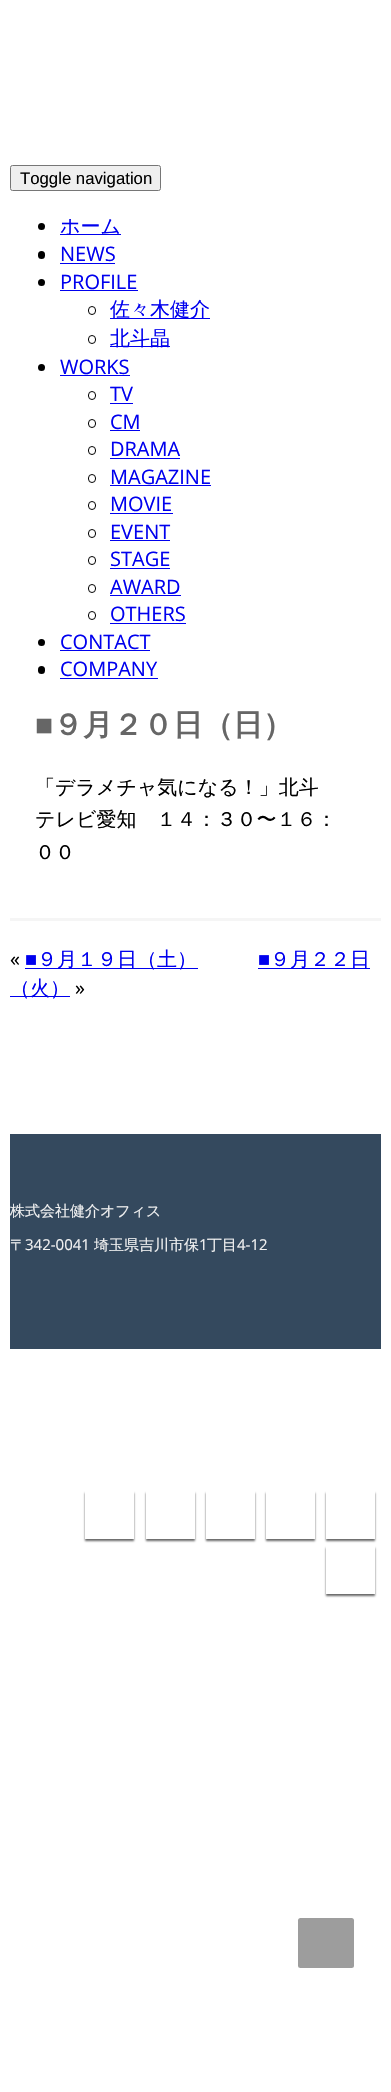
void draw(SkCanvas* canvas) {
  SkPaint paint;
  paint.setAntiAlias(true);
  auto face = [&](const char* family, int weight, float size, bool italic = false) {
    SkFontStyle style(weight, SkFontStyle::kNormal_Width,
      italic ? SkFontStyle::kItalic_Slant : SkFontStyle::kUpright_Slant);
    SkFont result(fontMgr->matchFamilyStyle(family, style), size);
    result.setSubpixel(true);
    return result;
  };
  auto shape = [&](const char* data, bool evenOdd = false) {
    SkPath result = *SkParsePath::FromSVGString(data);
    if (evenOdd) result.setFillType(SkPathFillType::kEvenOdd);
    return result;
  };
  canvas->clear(0xffffffff);
  paint.setColor(0xffefefef);
  canvas->drawRoundRect(SkRect::MakeXYWH(10.5f, 165.5f, 150, 25), 2, 2, paint);
  paint.setStroke(true);
  paint.setStrokeWidth(1);
  paint.setColor(0xff767676);
  canvas->drawRoundRect(SkRect::MakeXYWH(10.5f, 165.5f, 150, 25), 2, 2, paint);
  paint.setStroke(false);
  paint.setColor(0xff000000);
  canvas->drawCircle(41.5f, 226.5f, 3.5f, paint);
  paint.setColor(0xff0000ee);
  canvas->drawRect(SkRect::MakeXYWH(60, 234, 61, 1), paint);
  paint.setColor(0xff000000);
  canvas->drawRoundRect(SkRect::MakeXYWH(38, 251, 7, 8), 3.5f, 3.5f, paint);
  paint.setColor(0xff0000ee);
  canvas->drawRect(SkRect::MakeXYWH(60, 263, 55, 1), paint);
  paint.setColor(0xff000000);
  canvas->drawCircle(41.5f, 282.5f, 3.5f, paint);
  paint.setColor(0xff0000ee);
  canvas->drawRect(SkRect::MakeXYWH(60, 290, 78, 1), paint);
  paint.setStroke(true);
  paint.setColor(0xff000000);
  canvas->drawRoundRect(SkRect::MakeXYWH(88.5f, 306.5f, 7, 8), 3.5f, 3.5f, paint);
  paint.setStroke(false);
  paint.setColor(0xff0000ee);
  canvas->drawRect(SkRect::MakeXYWH(110, 318, 100, 1), paint);
  paint.setStroke(true);
  paint.setColor(0xff000000);
  canvas->drawRoundRect(SkRect::MakeXYWH(88.5f, 335.5f, 7, 8), 3.5f, 3.5f, paint);
  paint.setStroke(false);
  paint.setColor(0xff0000ee);
  canvas->drawRect(SkRect::MakeXYWH(110, 346, 60, 1), paint);
  paint.setColor(0xff000000);
  canvas->drawCircle(41.5f, 367.5f, 3.5f, paint);
  paint.setColor(0xff0000ee);
  canvas->drawRect(SkRect::MakeXYWH(60, 375, 70, 1), paint);
  paint.setStroke(true);
  paint.setColor(0xff000000);
  canvas->drawRoundRect(SkRect::MakeXYWH(88.5f, 391.5f, 7, 8), 3.5f, 3.5f, paint);
  paint.setStroke(false);
  paint.setColor(0xff0000ee);
  canvas->drawRect(SkRect::MakeXYWH(110, 403, 23, 1), paint);
  paint.setStroke(true);
  paint.setColor(0xff000000);
  canvas->drawRoundRect(SkRect::MakeXYWH(88.5f, 419.5f, 7, 8), 3.5f, 3.5f, paint);
  paint.setStroke(false);
  paint.setColor(0xff0000ee);
  canvas->drawRect(SkRect::MakeXYWH(110, 430, 30, 1), paint);
  paint.setStroke(true);
  paint.setColor(0xff000000);
  canvas->drawRoundRect(SkRect::MakeXYWH(88.5f, 446.5f, 7, 8), 3.5f, 3.5f, paint);
  paint.setStroke(false);
  paint.setColor(0xff0000ee);
  canvas->drawRect(SkRect::MakeXYWH(110, 458, 70, 1), paint);
  paint.setStroke(true);
  paint.setColor(0xff000000);
  canvas->drawRoundRect(SkRect::MakeXYWH(88.5f, 474.5f, 7, 8), 3.5f, 3.5f, paint);
  paint.setStroke(false);
  paint.setColor(0xff0000ee);
  canvas->drawRect(SkRect::MakeXYWH(110, 485, 101, 1), paint);
  paint.setStroke(true);
  paint.setColor(0xff000000);
  canvas->drawRoundRect(SkRect::MakeXYWH(88.5f, 501.5f, 7, 8), 3.5f, 3.5f, paint);
  paint.setStroke(false);
  paint.setColor(0xff0000ee);
  canvas->drawRect(SkRect::MakeXYWH(110, 513, 63, 1), paint);
  paint.setStroke(true);
  paint.setColor(0xff000000);
  canvas->drawRoundRect(SkRect::MakeXYWH(88.5f, 529.5f, 7, 8), 3.5f, 3.5f, paint);
  paint.setStroke(false);
  paint.setColor(0xff0000ee);
  canvas->drawRect(SkRect::MakeXYWH(110, 540, 60, 1), paint);
  paint.setStroke(true);
  paint.setColor(0xff000000);
  canvas->drawRoundRect(SkRect::MakeXYWH(88.5f, 556.5f, 7, 8), 3.5f, 3.5f, paint);
  paint.setStroke(false);
  paint.setColor(0xff0000ee);
  canvas->drawRect(SkRect::MakeXYWH(110, 568, 60, 1), paint);
  paint.setStroke(true);
  paint.setColor(0xff000000);
  canvas->drawRoundRect(SkRect::MakeXYWH(88.5f, 584.5f, 7, 8), 3.5f, 3.5f, paint);
  paint.setStroke(false);
  paint.setColor(0xff0000ee);
  canvas->drawRect(SkRect::MakeXYWH(110, 595, 71, 1), paint);
  paint.setStroke(true);
  paint.setColor(0xff000000);
  canvas->drawRoundRect(SkRect::MakeXYWH(88.5f, 611.5f, 7, 8), 3.5f, 3.5f, paint);
  paint.setStroke(false);
  paint.setColor(0xff0000ee);
  canvas->drawRect(SkRect::MakeXYWH(110, 623, 76, 1), paint);
  paint.setColor(0xff000000);
  canvas->drawCircle(41.5f, 642.5f, 3.5f, paint);
  paint.setColor(0xff0000ee);
  canvas->drawRect(SkRect::MakeXYWH(60, 650, 90, 1), paint);
  paint.setColor(0xff000000);
  canvas->drawRoundRect(SkRect::MakeXYWH(38, 666, 7, 8), 3.5f, 3.5f, paint);
  {
    const struct { float x, y, w, h; SkColor color; } items[] = {
      {60, 678, 98, 1, 0xff0000ee},
      {10, 918, 371, 3, 0xfff5f5f5},
      {25, 968, 173, 1, 0xff0000ee},
      {258, 968, 112, 1, 0xff0000ee},
      {10, 996, 60, 1, 0xff0000ee},
      {10, 1134, 371, 215, 0xff34495e},
    };
    for (auto [x, y, w, h, color] : items) {
      paint.setColor(color);
      canvas->drawRect(SkRect::MakeXYWH(x, y, w, h), paint);
    }
  }
  canvas->save();
  canvas->clipPath(shape("M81 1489H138V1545H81ZM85 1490H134V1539H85Z", true), true);
  paint.setColor(0x99000000);
  paint.setMaskFilter(SkMaskFilter::MakeBlur(kNormal_SkBlurStyle, 1));
  canvas->drawRect(SkRect::MakeXYWH(85, 1493, 49, 48), paint);
  paint.setMaskFilter(nullptr);
  canvas->restore();
  paint.setStroke(true);
  paint.setStrokeWidth(3);
  paint.setColor(0xffffffff);
  canvas->drawRect(SkRect::MakeXYWH(86.5f, 1491.5f, 46, 46), paint);
  canvas->save();
  canvas->clipPath(shape("M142 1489H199V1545H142ZM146 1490H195V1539H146Z", true), true);
  paint.setStroke(false);
  paint.setColor(0x99000000);
  paint.setMaskFilter(SkMaskFilter::MakeBlur(kNormal_SkBlurStyle, 1));
  canvas->drawRect(SkRect::MakeXYWH(146, 1493, 49, 48), paint);
  paint.setMaskFilter(nullptr);
  canvas->restore();
  paint.setStroke(true);
  paint.setColor(0xffffffff);
  canvas->drawRect(SkRect::MakeXYWH(147.5f, 1491.5f, 46, 46), paint);
  canvas->save();
  canvas->clipPath(shape("M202 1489H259V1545H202ZM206 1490H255V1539H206Z", true), true);
  paint.setStroke(false);
  paint.setColor(0x99000000);
  paint.setMaskFilter(SkMaskFilter::MakeBlur(kNormal_SkBlurStyle, 1));
  canvas->drawRect(SkRect::MakeXYWH(206, 1493, 49, 48), paint);
  paint.setMaskFilter(nullptr);
  canvas->restore();
  paint.setStroke(true);
  paint.setColor(0xffffffff);
  canvas->drawRect(SkRect::MakeXYWH(207.5f, 1491.5f, 46, 46), paint);
  canvas->save();
  canvas->clipPath(shape("M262 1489H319V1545H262ZM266 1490H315V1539H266Z", true), true);
  paint.setStroke(false);
  paint.setColor(0x99000000);
  paint.setMaskFilter(SkMaskFilter::MakeBlur(kNormal_SkBlurStyle, 1));
  canvas->drawRect(SkRect::MakeXYWH(266, 1493, 49, 48), paint);
  paint.setMaskFilter(nullptr);
  canvas->restore();
  paint.setStroke(true);
  paint.setColor(0xffffffff);
  canvas->drawRect(SkRect::MakeXYWH(267.5f, 1491.5f, 46, 46), paint);
  canvas->save();
  canvas->clipPath(shape("M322 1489H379V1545H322ZM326 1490H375V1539H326Z", true), true);
  paint.setStroke(false);
  paint.setColor(0x99000000);
  paint.setMaskFilter(SkMaskFilter::MakeBlur(kNormal_SkBlurStyle, 1));
  canvas->drawRect(SkRect::MakeXYWH(326, 1493, 49, 48), paint);
  paint.setMaskFilter(nullptr);
  canvas->restore();
  paint.setStroke(true);
  paint.setColor(0xffffffff);
  canvas->drawRect(SkRect::MakeXYWH(327.5f, 1491.5f, 46, 46), paint);
  canvas->save();
  canvas->clipPath(shape("M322 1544H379V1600H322ZM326 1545H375V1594H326Z", true), true);
  paint.setStroke(false);
  paint.setColor(0x99000000);
  paint.setMaskFilter(SkMaskFilter::MakeBlur(kNormal_SkBlurStyle, 1));
  canvas->drawRect(SkRect::MakeXYWH(326, 1548, 49, 48), paint);
  paint.setMaskFilter(nullptr);
  canvas->restore();
  paint.setStroke(true);
  paint.setColor(0xffffffff);
  canvas->drawRect(SkRect::MakeXYWH(327.5f, 1546.5f, 46, 46), paint);
  paint.setStroke(false);
  paint.setColor(0xff9d9d9d);
  canvas->drawRoundRect(SkRect::MakeXYWH(298, 1918, 56, 50), 2.5f, 2.5f, paint);
  auto f0 = face("Liberation Sans", 400, 16.75f);
  paint.setColor(0xff000000);
  canvas->drawString("Toggle navigation", 20, 184, f0, paint);
  auto f1 = face("WenQuanYi Zen Hei", 500, 20);
  paint.setColor(0xff0000ee);
  canvas->drawString("ホーム", 60, 233, f1, paint);
  auto f2 = face("Open Sans", 400, 20);
  canvas->drawString("NEWS", 60, 261, f2, paint);
  canvas->drawString("PROFILE", 60, 289, f2, paint);
  canvas->drawString("佐々木健介", 110, 316, f1, paint);
  canvas->drawString("北斗晶", 110, 345, f1, paint);
  {
    const struct { const char* s; float x, y; } items[] = {
      {"WORKS", 60, 374},
      {"TV", 110, 401},
      {"CM", 110, 429},
      {"DRAMA", 110, 456},
      {"MAGAZINE", 110, 484},
      {"MOVIE", 110, 511},
      {"EVENT", 110, 539},
      {"STAGE", 110, 566},
      {"AWARD", 110, 594},
      {"OTHERS", 110, 621},
      {"CONTACT", 60, 649},
      {"COMPANY", 60, 676},
    };
    for (auto [s, x, y] : items) {
      canvas->drawString(s, x, y, f2, paint);
    }
  }
  auto f3 = face("Liberation Sans", 700, 30);
  paint.setColor(0xff666666);
  canvas->drawString("■", 35, 735, f3, paint);
  auto f4 = face("WenQuanYi Zen Hei", 700, 30);
  canvas->drawString("９月２０日（日）", 53, 735, f4, paint);
  paint.setColor(0xff000000);
  {
    const struct { const char* s; float x, y; } items[] = {
      {"「デラメチャ気になる！」北斗", 35, 794},
      {"テレビ愛知　１４：３０〜１６：", 35, 826},
      {"００", 35, 859},
    };
    for (auto [s, x, y] : items) {
      canvas->drawString(s, x, y, f1, paint);
    }
  }
  canvas->drawString("«", 10, 966, f2, paint);
  auto f5 = face("Liberation Sans", 400, 20);
  paint.setColor(0xff0000ee);
  canvas->drawString("■", 25, 966, f5, paint);
  canvas->drawString("９月１９日（土）", 37, 966, f1, paint);
  canvas->drawString("■", 258, 966, f5, paint);
  canvas->drawString("９月２２日", 270, 966, f1, paint);
  canvas->drawString("（火）", 10, 995, f1, paint);
  paint.setColor(0xff000000);
  canvas->drawString("»", 75, 995, f2, paint);
  auto f6 = face("WenQuanYi Zen Hei", 500, 15);
  paint.setColor(0xfff2f2f2);
  canvas->drawString("株式会社健介オフィス", 10, 1216, f6, paint);
  canvas->drawString("〒", 10, 1250, f6, paint);
  auto f7 = face("Open Sans", 400, 15);
  canvas->drawString("342-0041", 25, 1250, f7, paint);
  canvas->drawString("埼玉県吉川市保", 94, 1250, f6, paint);
  canvas->drawString("1", 199, 1250, f7, paint);
  canvas->drawString("丁目", 207, 1250, f6, paint);
  canvas->drawString("4-12", 237, 1250, f7, paint);
}
